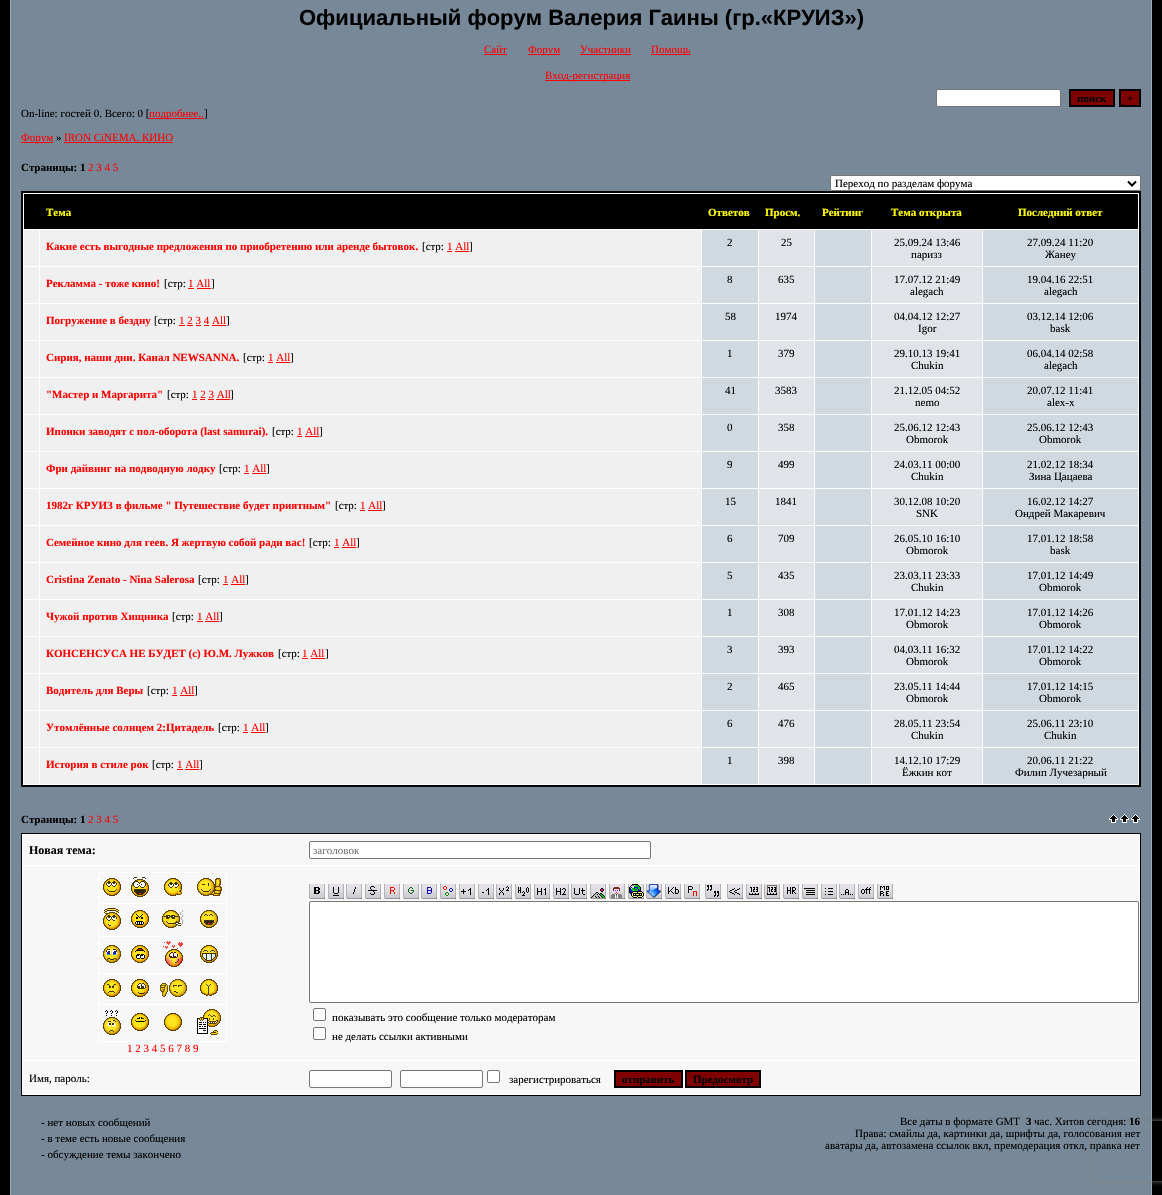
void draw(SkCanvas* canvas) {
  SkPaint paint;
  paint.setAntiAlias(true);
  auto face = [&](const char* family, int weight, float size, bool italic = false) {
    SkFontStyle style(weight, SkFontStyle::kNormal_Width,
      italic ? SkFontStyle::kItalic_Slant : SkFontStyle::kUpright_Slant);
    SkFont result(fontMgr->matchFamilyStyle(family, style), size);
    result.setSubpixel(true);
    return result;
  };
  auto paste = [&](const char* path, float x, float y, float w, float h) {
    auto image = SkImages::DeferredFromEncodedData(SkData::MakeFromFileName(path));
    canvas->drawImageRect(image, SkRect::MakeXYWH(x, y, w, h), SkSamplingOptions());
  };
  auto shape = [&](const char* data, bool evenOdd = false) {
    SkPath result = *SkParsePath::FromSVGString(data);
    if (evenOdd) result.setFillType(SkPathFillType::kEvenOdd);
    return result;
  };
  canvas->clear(0xff000000);
  {
    const struct { float x, y, w, h; SkColor color; } items[] = {
      {10, 0, 1142, 1195, 0xff98aab1},
      {11, 0, 1140, 1195, 0xff778899},
      {484, 54, 23, 1, 0xffff0000},
      {528, 54, 32, 1, 0xffff0000},
      {580, 54, 51, 1, 0xffff0000},
      {651, 54, 40, 1, 0xffff0000},
      {545, 80, 85, 1, 0xffff0000},
    };
    for (auto [x, y, w, h, color] : items) {
      paint.setColor(color);
      canvas->drawRect(SkRect::MakeXYWH(x, y, w, h), paint);
    }
  }
  paint.setColor(0xffffffff);
  canvas->drawRoundRect(SkRect::MakeXYWH(936.5f, 89.5f, 124, 17), 1.5f, 1.5f, paint);
  paint.setStroke(true);
  paint.setStrokeWidth(1);
  paint.setColor(0xff767676);
  canvas->drawRoundRect(SkRect::MakeXYWH(936.5f, 89.5f, 124, 17), 1.5f, 1.5f, paint);
  paint.setStroke(false);
  paint.setColor(0xff800000);
  canvas->drawRect(SkRect::MakeXYWH(1070, 90, 44, 16), paint);
  paint.setStroke(true);
  paint.setStrokeWidth(2);
  paint.setColor(0xff000000);
  canvas->drawRect(SkRect::MakeXYWH(1070, 90, 44, 16), paint);
  paint.setStroke(false);
  paint.setColor(0xff800000);
  canvas->drawRect(SkRect::MakeXYWH(1120, 90, 20, 16), paint);
  paint.setStroke(true);
  paint.setColor(0xff000000);
  canvas->drawRect(SkRect::MakeXYWH(1120, 90, 20, 16), paint);
  paint.setStroke(false);
  paint.setColor(0xffff0000);
  canvas->drawRect(SkRect::MakeXYWH(21, 142, 32, 1), paint);
  canvas->drawRect(SkRect::MakeXYWH(64, 142, 109, 1), paint);
  paint.setColor(0xffffffff);
  canvas->drawRoundRect(SkRect::MakeXYWH(830.5f, 175.5f, 310, 15), 1.5f, 1.5f, paint);
  paint.setStroke(true);
  paint.setStrokeWidth(1);
  paint.setColor(0xff767676);
  canvas->drawRoundRect(SkRect::MakeXYWH(830.5f, 175.5f, 310, 15), 1.5f, 1.5f, paint);
  paint.setStrokeWidth(2);
  paint.setColor(0xff000000);
  canvas->drawPath(shape("M1128 181.5L1132 185.5L1136 181.5"), paint);
  paint.setStroke(false);
  {
    const struct { float x, y, w, h; SkColor color; } items[] = {
      {21, 191, 1120, 596, 0xff000000},
      {23, 193, 1116, 592, 0xffffffff},
      {24, 194, 1114, 35, 0xff000000},
      {24, 230, 15, 36, 0xfff0f0f0},
      {40, 230, 661, 36, 0xfff0f0f0},
      {447, 251, 5, 1, 0xffff0000},
      {455, 251, 14, 1, 0xffff0000},
      {702, 230, 56, 36, 0xffd0d8e0},
      {759, 230, 55, 36, 0xffe0e4e8},
      {815, 230, 56, 36, 0xffd0d8e0},
      {872, 230, 110, 36, 0xffe0e4e8},
      {983, 230, 155, 36, 0xffd0d8e0},
      {24, 267, 15, 36, 0xfff0f0f0},
      {40, 267, 661, 36, 0xfff0f0f0},
      {188, 288, 6, 1, 0xffff0000},
      {197, 288, 14, 1, 0xffff0000},
      {702, 267, 56, 36, 0xffd0d8e0},
      {759, 267, 55, 36, 0xffe0e4e8},
      {815, 267, 56, 36, 0xffd0d8e0},
      {872, 267, 110, 36, 0xffe0e4e8},
      {983, 267, 155, 36, 0xffd0d8e0},
      {24, 304, 15, 36, 0xfff0f0f0},
      {40, 304, 661, 36, 0xfff0f0f0},
      {179, 325, 6, 1, 0xffff0000},
      {187, 325, 6, 1, 0xffff0000},
      {196, 325, 5, 1, 0xffff0000},
      {204, 325, 5, 1, 0xffff0000},
      {212, 325, 14, 1, 0xffff0000},
      {702, 304, 56, 36, 0xffd0d8e0},
      {759, 304, 55, 36, 0xffe0e4e8},
      {815, 304, 56, 36, 0xffd0d8e0},
      {872, 304, 110, 36, 0xffe0e4e8},
      {983, 304, 155, 36, 0xffd0d8e0},
      {24, 341, 15, 36, 0xfff0f0f0},
      {40, 341, 661, 36, 0xfff0f0f0},
      {268, 362, 5, 1, 0xffff0000},
      {276, 362, 14, 1, 0xffff0000},
      {702, 341, 56, 36, 0xffd0d8e0},
      {759, 341, 55, 36, 0xffe0e4e8},
      {815, 341, 56, 36, 0xffd0d8e0},
      {872, 341, 110, 36, 0xffe0e4e8},
      {983, 341, 155, 36, 0xffd0d8e0},
      {24, 378, 15, 36, 0xfff0f0f0},
      {40, 378, 661, 36, 0xfff0f0f0},
      {192, 399, 5, 1, 0xffff0000},
      {200, 399, 5, 1, 0xffff0000},
      {208, 399, 6, 1, 0xffff0000},
      {216, 399, 14, 1, 0xffff0000},
      {702, 378, 56, 36, 0xffd0d8e0},
      {759, 378, 55, 36, 0xffe0e4e8},
      {815, 378, 56, 36, 0xffd0d8e0},
      {872, 378, 110, 36, 0xffe0e4e8},
      {983, 378, 155, 36, 0xffd0d8e0},
      {24, 415, 15, 36, 0xfff0f0f0},
      {40, 415, 661, 36, 0xfff0f0f0},
      {297, 436, 5, 1, 0xffff0000},
      {305, 436, 14, 1, 0xffff0000},
      {702, 415, 56, 36, 0xffd0d8e0},
      {759, 415, 55, 36, 0xffe0e4e8},
      {815, 415, 56, 36, 0xffd0d8e0},
      {872, 415, 110, 36, 0xffe0e4e8},
      {983, 415, 155, 36, 0xffd0d8e0},
      {24, 452, 15, 36, 0xfff0f0f0},
      {40, 452, 661, 36, 0xfff0f0f0},
      {244, 473, 5, 1, 0xffff0000},
      {252, 473, 14, 1, 0xffff0000},
      {702, 452, 56, 36, 0xffd0d8e0},
      {759, 452, 55, 36, 0xffe0e4e8},
      {815, 452, 56, 36, 0xffd0d8e0},
      {872, 452, 110, 36, 0xffe0e4e8},
      {983, 452, 155, 36, 0xffd0d8e0},
      {24, 489, 15, 36, 0xfff0f0f0},
      {40, 489, 661, 36, 0xfff0f0f0},
      {360, 510, 5, 1, 0xffff0000},
      {368, 510, 14, 1, 0xffff0000},
      {702, 489, 56, 36, 0xffd0d8e0},
      {759, 489, 55, 36, 0xffe0e4e8},
      {815, 489, 56, 36, 0xffd0d8e0},
      {872, 489, 110, 36, 0xffe0e4e8},
      {983, 489, 155, 36, 0xffd0d8e0},
      {24, 526, 15, 36, 0xfff0f0f0},
      {40, 526, 661, 36, 0xfff0f0f0},
      {334, 547, 5, 1, 0xffff0000},
      {342, 547, 14, 1, 0xffff0000},
      {702, 526, 56, 36, 0xffd0d8e0},
      {759, 526, 55, 36, 0xffe0e4e8},
      {815, 526, 56, 36, 0xffd0d8e0},
      {872, 526, 110, 36, 0xffe0e4e8},
      {983, 526, 155, 36, 0xffd0d8e0},
      {24, 563, 15, 36, 0xfff0f0f0},
      {40, 563, 661, 36, 0xfff0f0f0},
      {223, 584, 5, 1, 0xffff0000},
      {231, 584, 14, 1, 0xffff0000},
      {702, 563, 56, 36, 0xffd0d8e0},
      {759, 563, 55, 36, 0xffe0e4e8},
      {815, 563, 56, 36, 0xffd0d8e0},
      {872, 563, 110, 36, 0xffe0e4e8},
      {983, 563, 155, 36, 0xffd0d8e0},
      {24, 600, 15, 36, 0xfff0f0f0},
      {40, 600, 661, 36, 0xfff0f0f0},
      {197, 621, 6, 1, 0xffff0000},
      {205, 621, 14, 1, 0xffff0000},
      {702, 600, 56, 36, 0xffd0d8e0},
      {759, 600, 55, 36, 0xffe0e4e8},
      {815, 600, 56, 36, 0xffd0d8e0},
      {872, 600, 110, 36, 0xffe0e4e8},
      {983, 600, 155, 36, 0xffd0d8e0},
      {24, 637, 15, 36, 0xfff0f0f0},
      {40, 637, 661, 36, 0xfff0f0f0},
      {302, 658, 6, 1, 0xffff0000},
      {311, 658, 14, 1, 0xffff0000},
      {702, 637, 56, 36, 0xffd0d8e0},
      {759, 637, 55, 36, 0xffe0e4e8},
      {815, 637, 56, 36, 0xffd0d8e0},
      {872, 637, 110, 36, 0xffe0e4e8},
      {983, 637, 155, 36, 0xffd0d8e0},
      {24, 674, 15, 36, 0xfff0f0f0},
      {40, 674, 661, 36, 0xfff0f0f0},
      {172, 695, 5, 1, 0xffff0000},
      {180, 695, 14, 1, 0xffff0000},
      {702, 674, 56, 36, 0xffd0d8e0},
      {759, 674, 55, 36, 0xffe0e4e8},
      {815, 674, 56, 36, 0xffd0d8e0},
      {872, 674, 110, 36, 0xffe0e4e8},
      {983, 674, 155, 36, 0xffd0d8e0},
      {24, 711, 15, 36, 0xfff0f0f0},
      {40, 711, 661, 36, 0xfff0f0f0},
      {243, 732, 5, 1, 0xffff0000},
      {251, 732, 14, 1, 0xffff0000},
      {702, 711, 56, 36, 0xffd0d8e0},
      {759, 711, 55, 36, 0xffe0e4e8},
      {815, 711, 56, 36, 0xffd0d8e0},
      {872, 711, 110, 36, 0xffe0e4e8},
      {983, 711, 155, 36, 0xffd0d8e0},
      {24, 748, 15, 36, 0xfff0f0f0},
      {40, 748, 661, 36, 0xfff0f0f0},
      {177, 769, 6, 1, 0xffff0000},
      {185, 769, 14, 1, 0xffff0000},
      {702, 748, 56, 36, 0xffd0d8e0},
      {759, 748, 55, 36, 0xffe0e4e8},
      {815, 748, 56, 36, 0xffd0d8e0},
      {872, 748, 110, 36, 0xffe0e4e8},
      {983, 748, 155, 36, 0xffd0d8e0},
    };
    for (auto [x, y, w, h, color] : items) {
      paint.setColor(color);
      canvas->drawRect(SkRect::MakeXYWH(x, y, w, h), paint);
    }
  }
  paste("img/1.png", 1109, 814, 31, 9);
  {
    const struct { float x, y, w, h; SkColor color; } items[] = {
      {21, 833, 1120, 263, 0xff000000},
      {22, 834, 1118, 261, 0xffffffff},
      {23, 835, 1116, 30, 0xfff7f7f7},
    };
    for (auto [x, y, w, h, color] : items) {
      paint.setColor(color);
      canvas->drawRect(SkRect::MakeXYWH(x, y, w, h), paint);
    }
  }
  paint.setColor(0xffffffff);
  canvas->drawRoundRect(SkRect::MakeXYWH(309.5f, 841.5f, 341, 17), 1.5f, 1.5f, paint);
  paint.setStroke(true);
  paint.setStrokeWidth(1);
  paint.setColor(0xff767676);
  canvas->drawRoundRect(SkRect::MakeXYWH(309.5f, 841.5f, 341, 17), 1.5f, 1.5f, paint);
  paint.setStroke(false);
  paint.setColor(0xfff7f7f7);
  canvas->drawRect(SkRect::MakeXYWH(23, 866, 1116, 194), paint);
  paste("img/2.png", 309, 884, 16, 15);
  paste("img/3.png", 328, 884, 16, 15);
  paste("img/4.png", 346, 884, 16, 15);
  paste("img/5.png", 365, 884, 16, 15);
  paste("img/6.png", 384, 884, 16, 15);
  paste("img/7.png", 403, 884, 16, 15);
  paste("img/8.png", 421, 884, 16, 15);
  paste("img/9.png", 440, 884, 16, 15);
  paste("img/10.png", 459, 884, 16, 15);
  paste("img/11.png", 478, 884, 16, 15);
  paste("img/12.png", 496, 884, 16, 15);
  paste("img/13.png", 515, 884, 16, 15);
  paste("img/14.png", 534, 884, 16, 15);
  paste("img/15.png", 553, 884, 16, 15);
  paste("img/16.png", 571, 884, 16, 15);
  paste("img/17.png", 590, 884, 16, 15);
  paste("img/18.png", 609, 884, 16, 15);
  paste("img/19.png", 628, 884, 16, 15);
  paste("img/20.png", 646, 884, 16, 15);
  paste("img/21.png", 665, 884, 16, 15);
  paste("img/22.png", 684, 884, 16, 15);
  paste("img/23.png", 705, 884, 16, 15);
  paste("img/24.png", 727, 884, 16, 15);
  paste("img/25.png", 746, 884, 16, 15);
  paste("img/26.png", 764, 884, 16, 15);
  paste("img/27.png", 783, 884, 16, 15);
  paste("img/28.png", 802, 884, 16, 15);
  paste("img/29.png", 821, 884, 16, 15);
  paste("img/30.png", 839, 884, 16, 15);
  paste("img/31.png", 858, 884, 16, 15);
  paste("img/32.png", 877, 884, 16, 15);
  paint.setColor(0xffffffff);
  canvas->drawRoundRect(SkRect::MakeXYWH(309.5f, 901.5f, 829, 101), 1.5f, 1.5f, paint);
  paint.setStroke(true);
  paint.setColor(0xff767676);
  canvas->drawRoundRect(SkRect::MakeXYWH(309.5f, 901.5f, 829, 101), 1.5f, 1.5f, paint);
  paint.setStroke(false);
  paint.setColor(0xffffffff);
  canvas->drawRoundRect(SkRect::MakeXYWH(313.5f, 1008.5f, 12, 12), 1.5f, 1.5f, paint);
  paint.setStroke(true);
  paint.setColor(0xff767676);
  canvas->drawRoundRect(SkRect::MakeXYWH(313.5f, 1008.5f, 12, 12), 1.5f, 1.5f, paint);
  paint.setStroke(false);
  paint.setColor(0xffffffff);
  canvas->drawRoundRect(SkRect::MakeXYWH(313.5f, 1027.5f, 12, 12), 1.5f, 1.5f, paint);
  paint.setStroke(true);
  paint.setColor(0xff767676);
  canvas->drawRoundRect(SkRect::MakeXYWH(313.5f, 1027.5f, 12, 12), 1.5f, 1.5f, paint);
  paint.setStroke(false);
  paint.setColor(0xffffffff);
  canvas->drawRect(SkRect::MakeXYWH(98, 872, 129, 170), paint);
  paint.setColor(0xfff7f7f7);
  canvas->drawRect(SkRect::MakeXYWH(99, 873, 127, 30), paint);
  paste("img/33.png", 103, 878, 18, 18);
  paste("img/34.png", 131, 877, 18, 20);
  paste("img/35.png", 164, 878, 18, 18);
  paste("img/36.png", 197, 878, 25, 18);
  canvas->drawRect(SkRect::MakeXYWH(99, 904, 127, 32), paint);
  paste("img/37.png", 103, 908, 18, 22);
  paste("img/38.png", 131, 910, 18, 18);
  paste("img/39.png", 162, 910, 22, 18);
  paste("img/40.png", 200, 910, 18, 18);
  canvas->drawRect(SkRect::MakeXYWH(99, 937, 127, 36), paint);
  paste("img/41.png", 103, 945, 18, 18);
  paste("img/42.png", 131, 945, 18, 18);
  paste("img/43.png", 163, 941, 20, 26);
  paste("img/44.png", 200, 945, 18, 18);
  canvas->drawRect(SkRect::MakeXYWH(99, 974, 127, 30), paint);
  paste("img/45.png", 103, 979, 18, 18);
  paste("img/46.png", 131, 979, 18, 18);
  paste("img/47.png", 160, 979, 27, 18);
  paste("img/48.png", 200, 979, 18, 17);
  canvas->drawRect(SkRect::MakeXYWH(99, 1005, 127, 36), paint);
  paste("img/49.png", 103, 1010, 18, 25);
  paste("img/50.png", 131, 1013, 18, 18);
  paste("img/51.png", 164, 1013, 18, 18);
  paste("img/52.png", 197, 1009, 24, 26);
  canvas->drawRect(SkRect::MakeXYWH(23, 1061, 1116, 33), paint);
  paint.setColor(0xffffffff);
  canvas->drawRoundRect(SkRect::MakeXYWH(309.5f, 1070.5f, 82, 17), 1.5f, 1.5f, paint);
  paint.setStroke(true);
  paint.setColor(0xff767676);
  canvas->drawRoundRect(SkRect::MakeXYWH(309.5f, 1070.5f, 82, 17), 1.5f, 1.5f, paint);
  paint.setStroke(false);
  paint.setColor(0xffffffff);
  canvas->drawRoundRect(SkRect::MakeXYWH(400.5f, 1070.5f, 82, 17), 1.5f, 1.5f, paint);
  paint.setStroke(true);
  paint.setColor(0xff767676);
  canvas->drawRoundRect(SkRect::MakeXYWH(400.5f, 1070.5f, 82, 17), 1.5f, 1.5f, paint);
  paint.setStroke(false);
  paint.setColor(0xffffffff);
  canvas->drawRoundRect(SkRect::MakeXYWH(487.5f, 1070.5f, 12, 12), 1.5f, 1.5f, paint);
  paint.setStroke(true);
  paint.setColor(0xff767676);
  canvas->drawRoundRect(SkRect::MakeXYWH(487.5f, 1070.5f, 12, 12), 1.5f, 1.5f, paint);
  paint.setStroke(false);
  paint.setColor(0xff800000);
  canvas->drawRect(SkRect::MakeXYWH(615, 1071, 67, 16), paint);
  paint.setStroke(true);
  paint.setStrokeWidth(2);
  paint.setColor(0xff000000);
  canvas->drawRect(SkRect::MakeXYWH(615, 1071, 67, 16), paint);
  paint.setStroke(false);
  paint.setColor(0xff800000);
  canvas->drawRect(SkRect::MakeXYWH(686, 1071, 74, 16), paint);
  paint.setStroke(true);
  paint.setColor(0xff000000);
  canvas->drawRect(SkRect::MakeXYWH(686, 1071, 74, 16), paint);
  canvas->save();
  canvas->clipPath(shape("M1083 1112H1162V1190H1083ZM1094 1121H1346C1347 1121 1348 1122 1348 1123V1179C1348 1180 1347 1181 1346 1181H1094C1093 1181 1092 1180 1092 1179V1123C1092 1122 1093 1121 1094 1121Z", true), true);
  paint.setStroke(false);
  paint.setColor(0xff808080);
  paint.setMaskFilter(SkMaskFilter::MakeBlur(kNormal_SkBlurStyle, 2.5f));
  canvas->drawRoundRect(SkRect::MakeXYWH(1092, 1121, 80, 60), 2, 2, paint);
  paint.setMaskFilter(nullptr);
  canvas->restore();
  auto f0 = face("Liberation Sans", 700, 22);
  paint.setColor(0xff000000);
  canvas->drawString("Официальный форум Валерия Гаины (гр.«КРУИЗ»)", 299, 25, f0, paint);
  auto f1 = face("Liberation Serif", 400, 11);
  paint.setColor(0xffff0000);
  {
    const struct { const char* s; float x, y; } items[] = {
      {"Сайт", 484, 53},
      {"Форум", 528, 53},
      {"Участники", 580, 53},
      {"Помощь", 651, 53},
      {"Вход-регистрация", 545, 79},
    };
    for (auto [s, x, y] : items) {
      canvas->drawString(s, x, y, f1, paint);
    }
  }
  auto f2 = face("Liberation Serif", 700, 11);
  paint.setColor(0xff000000);
  canvas->drawString("поиск", 1077, 102, f2, paint);
  canvas->drawString("+", 1127, 102, f2, paint);
  canvas->drawString("On-line: гостей 0. Всего: 0 [", 21, 117, f1, paint);
  paint.setColor(0xffff0000);
  canvas->drawRect(SkRect::MakeXYWH(149, 118, 55, 1), paint);
  canvas->drawString("подробнее..", 149, 117, f1, paint);
  paint.setColor(0xff000000);
  canvas->drawString("]", 204, 117, f1, paint);
  paint.setColor(0xffff0000);
  canvas->drawString("Форум", 21, 141, f1, paint);
  paint.setColor(0xff000000);
  canvas->drawString("»", 56, 141, f1, paint);
  paint.setColor(0xffff0000);
  canvas->drawString("IRON CiNEMA. КИНО", 64, 141, f1, paint);
  paint.setColor(0xff000000);
  canvas->drawString("Страницы: 1", 21, 171, f2, paint);
  paint.setColor(0xffff0000);
  canvas->drawString("2 3 4 5", 88, 171, f1, paint);
  paint.setColor(0xff000000);
  canvas->drawString("Переход по разделам форума", 835, 187, f1, paint);
  paint.setColor(0xffffff00);
  {
    const struct { const char* s; float x, y; } items[] = {
      {"Тема", 46, 216},
      {"Ответов", 708, 216},
      {"Просм.", 765, 216},
      {"Рейтинг", 822, 216},
      {"Тема открыта", 891, 216},
      {"Последний ответ", 1018, 216},
    };
    for (auto [s, x, y] : items) {
      canvas->drawString(s, x, y, f2, paint);
    }
  }
  paint.setColor(0xffff0000);
  canvas->drawString("Какие есть выгодные предложения по приобретению или аренде бытовок.", 46, 250, f2, paint);
  paint.setColor(0xff000000);
  canvas->drawString("[стр:", 422, 250, f1, paint);
  paint.setColor(0xffff0000);
  canvas->drawString("1 All", 447, 250, f1, paint);
  paint.setColor(0xff000000);
  {
    const struct { const char* s; float x, y; } items[] = {
      {"]", 469, 250},
      {"2", 727, 246},
      {"25", 781, 246},
      {"25.09.24 13:46", 894, 246},
      {"паризз", 911, 258},
      {"27.09.24 11:20", 1027, 246},
      {"Жанеу", 1045, 258},
    };
    for (auto [s, x, y] : items) {
      canvas->drawString(s, x, y, f1, paint);
    }
  }
  paint.setColor(0xffff0000);
  canvas->drawString("Рекламма - тоже кино!", 46, 287, f2, paint);
  paint.setColor(0xff000000);
  canvas->drawString("[стр:", 164, 287, f1, paint);
  paint.setColor(0xffff0000);
  canvas->drawString("1 All", 188, 287, f1, paint);
  paint.setColor(0xff000000);
  {
    const struct { const char* s; float x, y; } items[] = {
      {"]", 211, 287},
      {"8", 727, 283},
      {"635", 778, 283},
      {"17.07.12 21:49", 894, 283},
      {"alegach", 910, 295},
      {"19.04.16 22:51", 1027, 283},
      {"alegach", 1044, 295},
    };
    for (auto [s, x, y] : items) {
      canvas->drawString(s, x, y, f1, paint);
    }
  }
  paint.setColor(0xffff0000);
  canvas->drawString("Погружение в бездну", 46, 324, f2, paint);
  paint.setColor(0xff000000);
  canvas->drawString("[стр:", 154, 324, f1, paint);
  paint.setColor(0xffff0000);
  canvas->drawString("1 2 3 4 All", 179, 324, f1, paint);
  paint.setColor(0xff000000);
  {
    const struct { const char* s; float x, y; } items[] = {
      {"]", 226, 324},
      {"58", 725, 320},
      {"1974", 775, 320},
      {"04.04.12 12:27", 894, 320},
      {"Igor", 918, 332},
      {"03.12.14 12:06", 1027, 320},
      {"bask", 1050, 332},
    };
    for (auto [s, x, y] : items) {
      canvas->drawString(s, x, y, f1, paint);
    }
  }
  paint.setColor(0xffff0000);
  canvas->drawString("Сирия, наши дни. Канал NEWSANNA.", 46, 361, f2, paint);
  paint.setColor(0xff000000);
  canvas->drawString("[стр:", 243, 361, f1, paint);
  paint.setColor(0xffff0000);
  canvas->drawString("1 All", 268, 361, f1, paint);
  paint.setColor(0xff000000);
  {
    const struct { const char* s; float x, y; } items[] = {
      {"]", 290, 361},
      {"1", 727, 357},
      {"379", 778, 357},
      {"29.10.13 19:41", 894, 357},
      {"Chukin", 911, 369},
      {"06.04.14 02:58", 1027, 357},
      {"alegach", 1044, 369},
    };
    for (auto [s, x, y] : items) {
      canvas->drawString(s, x, y, f1, paint);
    }
  }
  paint.setColor(0xffff0000);
  canvas->drawString("\"Мастер и Маргарита\"", 46, 398, f2, paint);
  paint.setColor(0xff000000);
  canvas->drawString("[стр:", 167, 398, f1, paint);
  paint.setColor(0xffff0000);
  canvas->drawString("1 2 3 All", 192, 398, f1, paint);
  paint.setColor(0xff000000);
  {
    const struct { const char* s; float x, y; } items[] = {
      {"]", 230, 398},
      {"41", 725, 394},
      {"3583", 775, 394},
      {"21.12.05 04:52", 894, 394},
      {"nemo", 915, 406},
      {"20.07.12 11:41", 1027, 394},
      {"alex-x", 1047, 406},
    };
    for (auto [s, x, y] : items) {
      canvas->drawString(s, x, y, f1, paint);
    }
  }
  paint.setColor(0xffff0000);
  canvas->drawString("Ипонки заводят с пол-оборота (last samurai).", 46, 435, f2, paint);
  paint.setColor(0xff000000);
  canvas->drawString("[стр:", 272, 435, f1, paint);
  paint.setColor(0xffff0000);
  canvas->drawString("1 All", 297, 435, f1, paint);
  paint.setColor(0xff000000);
  {
    const struct { const char* s; float x, y; } items[] = {
      {"]", 319, 435},
      {"0", 727, 431},
      {"358", 778, 431},
      {"25.06.12 12:43", 894, 431},
      {"Obmorok", 906, 443},
      {"25.06.12 12:43", 1027, 431},
      {"Obmorok", 1039, 443},
    };
    for (auto [s, x, y] : items) {
      canvas->drawString(s, x, y, f1, paint);
    }
  }
  paint.setColor(0xffff0000);
  canvas->drawString("Фри дайвинг на подводную лодку", 46, 472, f2, paint);
  paint.setColor(0xff000000);
  canvas->drawString("[стр:", 219, 472, f1, paint);
  paint.setColor(0xffff0000);
  canvas->drawString("1 All", 244, 472, f1, paint);
  paint.setColor(0xff000000);
  {
    const struct { const char* s; float x, y; } items[] = {
      {"]", 266, 472},
      {"9", 727, 468},
      {"499", 778, 468},
      {"24.03.11 00:00", 894, 468},
      {"Chukin", 911, 480},
      {"21.02.12 18:34", 1027, 468},
      {"Зина Цацаева", 1029, 480},
    };
    for (auto [s, x, y] : items) {
      canvas->drawString(s, x, y, f1, paint);
    }
  }
  paint.setColor(0xffff0000);
  canvas->drawString("1982г КРУИЗ в фильме \" Путешествие будет приятным\"", 46, 509, f2, paint);
  paint.setColor(0xff000000);
  canvas->drawString("[стр:", 335, 509, f1, paint);
  paint.setColor(0xffff0000);
  canvas->drawString("1 All", 360, 509, f1, paint);
  paint.setColor(0xff000000);
  {
    const struct { const char* s; float x, y; } items[] = {
      {"]", 382, 509},
      {"15", 725, 505},
      {"1841", 775, 505},
      {"30.12.08 10:20", 894, 505},
      {"SNK", 916, 517},
      {"16.02.12 14:27", 1027, 505},
      {"Ондрей Макаревич", 1015, 517},
    };
    for (auto [s, x, y] : items) {
      canvas->drawString(s, x, y, f1, paint);
    }
  }
  paint.setColor(0xffff0000);
  canvas->drawString("Семейное кино для геев. Я жертвую собой ради вас!", 46, 546, f2, paint);
  paint.setColor(0xff000000);
  canvas->drawString("[стр:", 309, 546, f1, paint);
  paint.setColor(0xffff0000);
  canvas->drawString("1 All", 334, 546, f1, paint);
  paint.setColor(0xff000000);
  {
    const struct { const char* s; float x, y; } items[] = {
      {"]", 356, 546},
      {"6", 727, 542},
      {"709", 778, 542},
      {"26.05.10 16:10", 894, 542},
      {"Obmorok", 906, 554},
      {"17.01.12 18:58", 1027, 542},
      {"bask", 1050, 554},
    };
    for (auto [s, x, y] : items) {
      canvas->drawString(s, x, y, f1, paint);
    }
  }
  paint.setColor(0xffff0000);
  canvas->drawString("Cristina Zenato - Nina Salerosa", 46, 583, f2, paint);
  paint.setColor(0xff000000);
  canvas->drawString("[стр:", 198, 583, f1, paint);
  paint.setColor(0xffff0000);
  canvas->drawString("1 All", 223, 583, f1, paint);
  paint.setColor(0xff000000);
  {
    const struct { const char* s; float x, y; } items[] = {
      {"]", 245, 583},
      {"5", 727, 579},
      {"435", 778, 579},
      {"23.03.11 23:33", 894, 579},
      {"Chukin", 911, 591},
      {"17.01.12 14:49", 1027, 579},
      {"Obmorok", 1039, 591},
    };
    for (auto [s, x, y] : items) {
      canvas->drawString(s, x, y, f1, paint);
    }
  }
  paint.setColor(0xffff0000);
  canvas->drawString("Чужой против Хищника", 46, 620, f2, paint);
  paint.setColor(0xff000000);
  canvas->drawString("[стр:", 172, 620, f1, paint);
  paint.setColor(0xffff0000);
  canvas->drawString("1 All", 197, 620, f1, paint);
  paint.setColor(0xff000000);
  {
    const struct { const char* s; float x, y; } items[] = {
      {"]", 219, 620},
      {"1", 727, 616},
      {"308", 778, 616},
      {"17.01.12 14:23", 894, 616},
      {"Obmorok", 906, 628},
      {"17.01.12 14:26", 1027, 616},
      {"Obmorok", 1039, 628},
    };
    for (auto [s, x, y] : items) {
      canvas->drawString(s, x, y, f1, paint);
    }
  }
  paint.setColor(0xffff0000);
  canvas->drawString("КОНСЕНСУСА НЕ БУДЕТ (с) Ю.М. Лужков", 46, 657, f2, paint);
  paint.setColor(0xff000000);
  canvas->drawString("[стр:", 278, 657, f1, paint);
  paint.setColor(0xffff0000);
  canvas->drawString("1 All", 302, 657, f1, paint);
  paint.setColor(0xff000000);
  {
    const struct { const char* s; float x, y; } items[] = {
      {"]", 325, 657},
      {"3", 727, 653},
      {"393", 778, 653},
      {"04.03.11 16:32", 894, 653},
      {"Obmorok", 906, 665},
      {"17.01.12 14:22", 1027, 653},
      {"Obmorok", 1039, 665},
    };
    for (auto [s, x, y] : items) {
      canvas->drawString(s, x, y, f1, paint);
    }
  }
  paint.setColor(0xffff0000);
  canvas->drawString("Водитель для Веры", 46, 694, f2, paint);
  paint.setColor(0xff000000);
  canvas->drawString("[стр:", 147, 694, f1, paint);
  paint.setColor(0xffff0000);
  canvas->drawString("1 All", 172, 694, f1, paint);
  paint.setColor(0xff000000);
  {
    const struct { const char* s; float x, y; } items[] = {
      {"]", 194, 694},
      {"2", 727, 690},
      {"465", 778, 690},
      {"23.05.11 14:44", 894, 690},
      {"Obmorok", 906, 702},
      {"17.01.12 14:15", 1027, 690},
      {"Obmorok", 1039, 702},
    };
    for (auto [s, x, y] : items) {
      canvas->drawString(s, x, y, f1, paint);
    }
  }
  paint.setColor(0xffff0000);
  canvas->drawString("Утомлённые солнцем 2:Цитадель", 46, 731, f2, paint);
  paint.setColor(0xff000000);
  canvas->drawString("[стр:", 218, 731, f1, paint);
  paint.setColor(0xffff0000);
  canvas->drawString("1 All", 243, 731, f1, paint);
  paint.setColor(0xff000000);
  {
    const struct { const char* s; float x, y; } items[] = {
      {"]", 265, 731},
      {"6", 727, 727},
      {"476", 778, 727},
      {"28.05.11 23:54", 894, 727},
      {"Chukin", 911, 739},
      {"25.06.11 23:10", 1027, 727},
      {"Chukin", 1044, 739},
    };
    for (auto [s, x, y] : items) {
      canvas->drawString(s, x, y, f1, paint);
    }
  }
  paint.setColor(0xffff0000);
  canvas->drawString("История в стиле рок", 46, 768, f2, paint);
  paint.setColor(0xff000000);
  canvas->drawString("[стр:", 152, 768, f1, paint);
  paint.setColor(0xffff0000);
  canvas->drawString("1 All", 177, 768, f1, paint);
  paint.setColor(0xff000000);
  {
    const struct { const char* s; float x, y; } items[] = {
      {"]", 199, 768},
      {"1", 727, 764},
      {"398", 778, 764},
      {"14.12.10 17:29", 894, 764},
      {"Ёжкин кот", 902, 776},
      {"20.06.11 21:22", 1027, 764},
      {"Филип Лучезарный", 1015, 776},
    };
    for (auto [s, x, y] : items) {
      canvas->drawString(s, x, y, f1, paint);
    }
  }
  canvas->drawString("Страницы: 1", 21, 823, f2, paint);
  paint.setColor(0xffff0000);
  canvas->drawString("2 3 4 5", 88, 823, f1, paint);
  auto f3 = face("Liberation Serif", 700, 12);
  paint.setColor(0xff000000);
  canvas->drawString("Новая тема:", 29, 854, f3, paint);
  paint.setColor(0xff757575);
  canvas->drawString("заголовок", 313, 854, f1, paint);
  paint.setColor(0xff000000);
  canvas->drawString("показывать это сообщение только модераторам", 332, 1021, f1, paint);
  canvas->drawString("не делать ссылки активными", 332, 1040, f1, paint);
  paint.setColor(0xffff0000);
  canvas->drawString("1 2 3 4 5 6 7 8 9", 127, 1052, f1, paint);
  paint.setColor(0xff000000);
  canvas->drawString("Имя, пароль:", 29, 1082, f1, paint);
  canvas->drawString("зарегистрироваться", 509, 1083, f1, paint);
  canvas->drawString("отправить", 622, 1083, f2, paint);
  canvas->drawString("Предосмотр", 693, 1083, f2, paint);
  {
    const struct { const char* s; float x, y; } items[] = {
      {"- нет новых сообщений", 41, 1126},
      {"- в теме есть новые сообщения", 41, 1142},
      {"- обсуждение темы закончено", 41, 1158},
      {"Все даты в формате GMT", 900, 1125},
    };
    for (auto [s, x, y] : items) {
      canvas->drawString(s, x, y, f1, paint);
    }
  }
  canvas->drawString("3", 1026, 1125, f2, paint);
  canvas->drawString("час. Хитов сегодня:", 1034, 1125, f1, paint);
  canvas->drawString("16", 1129, 1125, f2, paint);
  canvas->drawString("Права: смайлы да, картинки да, шрифты да, голосования нет", 855, 1137, f1, paint);
  canvas->drawString("аватары да, автозамена ссылок вкл, премодерация откл, правка нет", 825, 1149, f1, paint);
}
